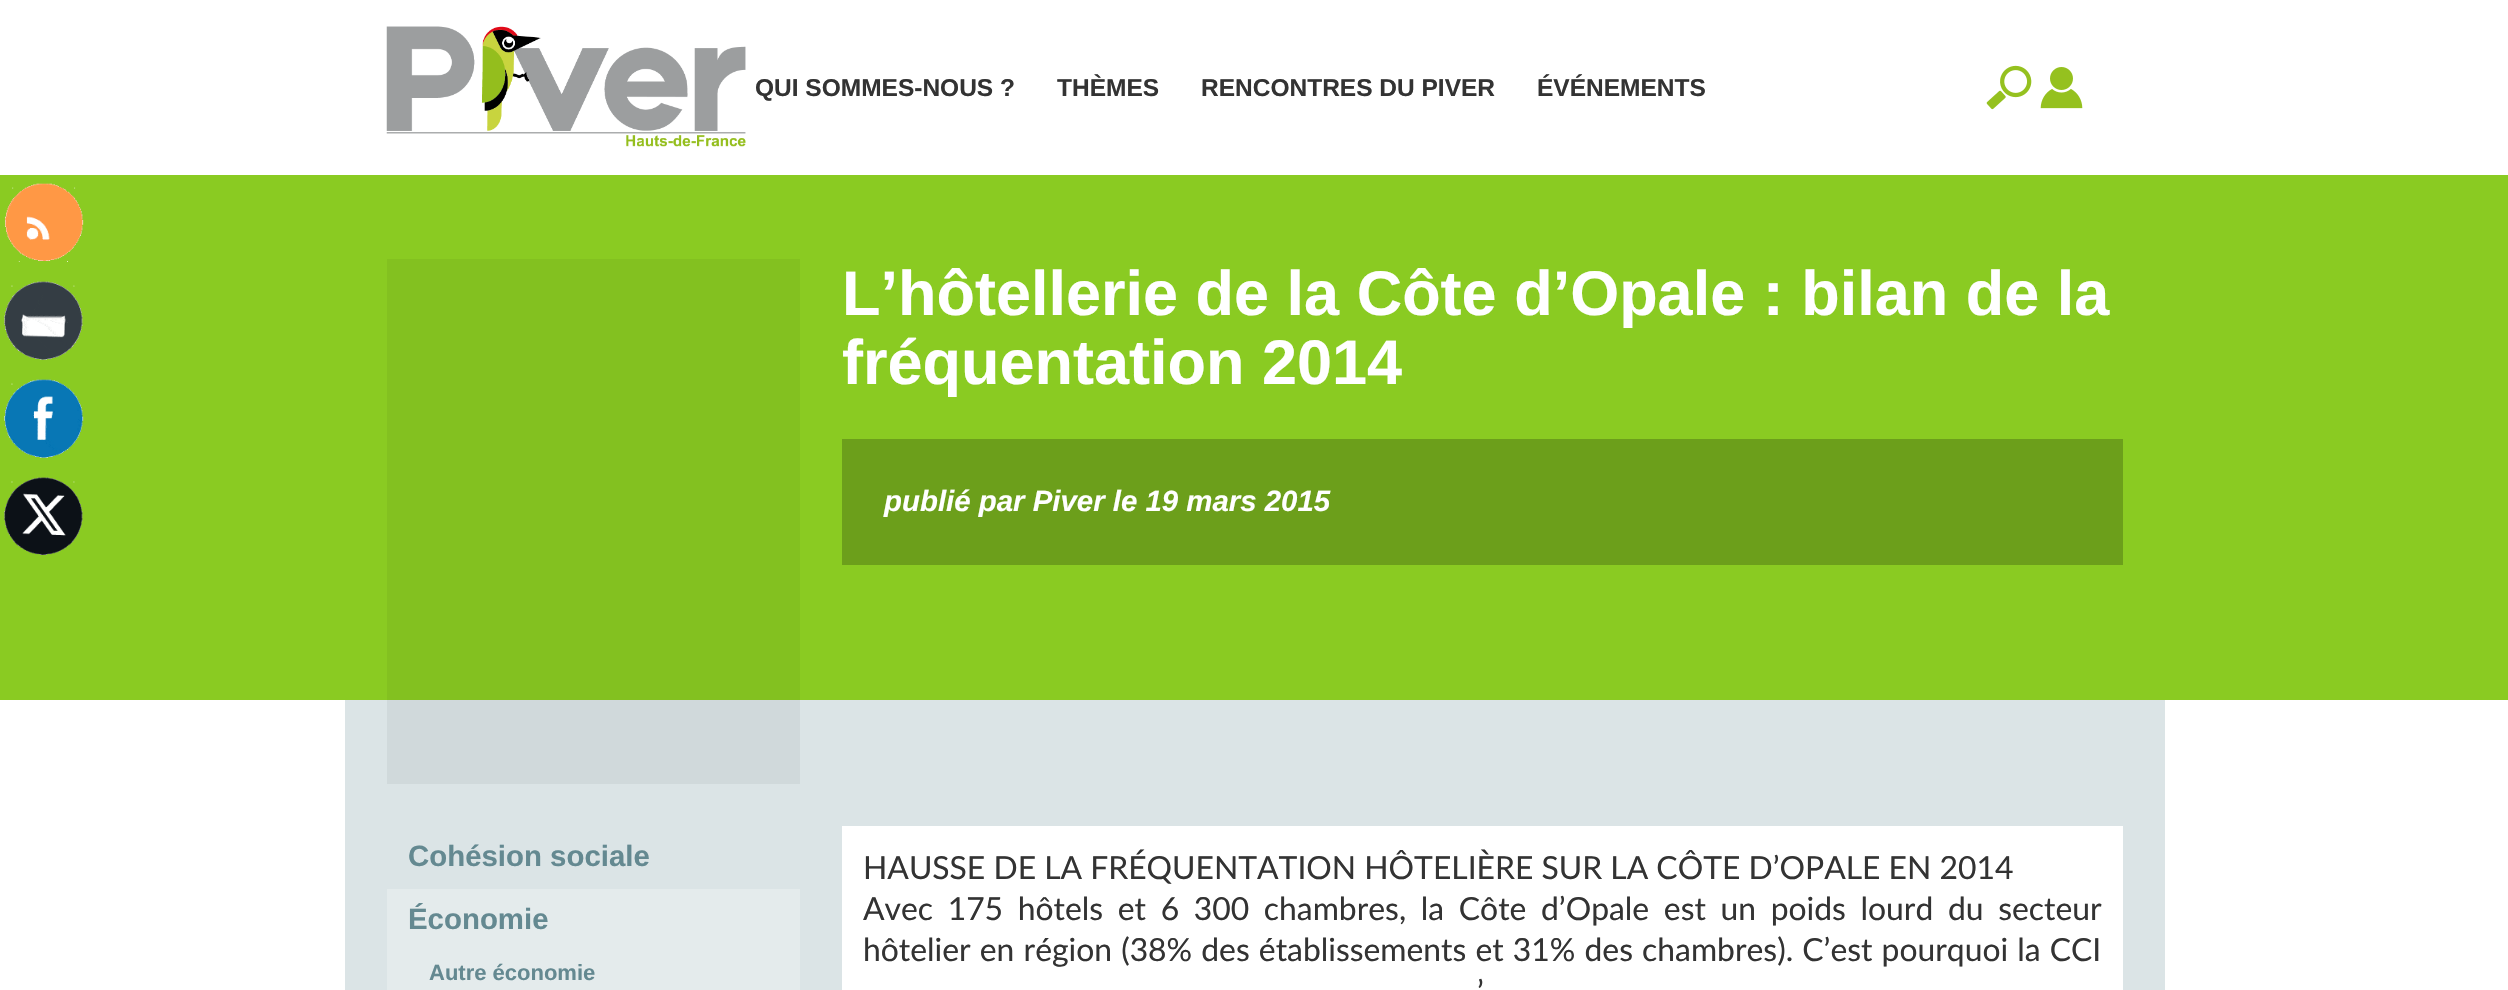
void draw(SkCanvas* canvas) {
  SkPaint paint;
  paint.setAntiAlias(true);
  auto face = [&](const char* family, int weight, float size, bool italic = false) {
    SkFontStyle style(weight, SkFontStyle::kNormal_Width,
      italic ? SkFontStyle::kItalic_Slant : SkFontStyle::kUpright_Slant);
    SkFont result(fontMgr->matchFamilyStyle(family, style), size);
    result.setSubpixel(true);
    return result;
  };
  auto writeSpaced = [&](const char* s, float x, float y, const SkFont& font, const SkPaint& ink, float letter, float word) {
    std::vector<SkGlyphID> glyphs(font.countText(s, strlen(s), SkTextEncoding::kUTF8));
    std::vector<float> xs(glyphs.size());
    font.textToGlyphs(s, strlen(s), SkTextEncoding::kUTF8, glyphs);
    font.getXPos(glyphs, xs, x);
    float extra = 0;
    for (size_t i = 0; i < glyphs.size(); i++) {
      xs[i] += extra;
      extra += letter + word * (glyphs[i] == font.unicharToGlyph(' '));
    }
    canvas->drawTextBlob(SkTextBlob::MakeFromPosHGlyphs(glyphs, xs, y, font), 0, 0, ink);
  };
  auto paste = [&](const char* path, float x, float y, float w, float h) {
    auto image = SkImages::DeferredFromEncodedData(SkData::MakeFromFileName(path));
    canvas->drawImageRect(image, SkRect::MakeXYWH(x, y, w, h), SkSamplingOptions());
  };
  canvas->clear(0xffffffff);
  paste("img/1.png", 386, 26, 360, 121);
  paste("img/2.png", 1986, 65, 46, 45);
  paste("img/3.png", 2040, 67, 43, 42);
  paint.setColor(0xff8acb22);
  canvas->drawRect(SkRect::MakeXYWH(0, 175, 2508, 525), paint);
  paste("img/4.png", 5, 183, 79, 79);
  paste("img/5.png", 4, 281, 79, 79);
  paste("img/6.png", 4, 379, 80, 79);
  paste("img/7.png", 4, 477, 79, 78);
  {
    const struct { float x, y, w, h; SkColor color; } items[] = {
      {387, 259, 413, 441, 0xff83c120},
      {842, 439, 1281, 126, 0xff6c9f1b},
      {345, 700, 1820, 290, 0xffdbe4e6},
      {387, 700, 413, 84, 0xffd0d9db},
      {387, 889, 413, 101, 0xffe4ebec},
      {842, 826, 1281, 164, 0xffffffff},
    };
    for (auto [x, y, w, h, color] : items) {
      paint.setColor(color);
      canvas->drawRect(SkRect::MakeXYWH(x, y, w, h), paint);
    }
  }
  auto f0 = face("Liberation Sans", 700, 24.5f);
  paint.setColor(0xff333333);
  {
    const struct { const char* s; float x, y; } items[] = {
      {"QUI SOMMES-NOUS ?", 755, 96},
      {"THÈMES", 1057, 96},
      {"RENCONTRES DU PIVER", 1201, 96},
      {"ÉVÉNEMENTS", 1537, 96},
    };
    for (auto [s, x, y] : items) {
      canvas->drawString(s, x, y, f0, paint);
    }
  }
  auto f1 = face("Liberation Sans", 700, 63);
  paint.setColor(0xffffffff);
  canvas->drawString("L’hôtellerie de la Côte d’Opale : bilan de la", 842, 315, f1, paint);
  canvas->drawString("fréquentation 2014", 842, 384, f1, paint);
  auto f2 = face("Liberation Sans", 700, 29.4f, true);
  canvas->drawString("publié par Piver le 19 mars 2015", 884, 511, f2, paint);
  auto f3 = face("Liberation Sans", 700, 29.4f);
  paint.setColor(0xff648991);
  canvas->drawString("Cohésion sociale", 408, 866, f3, paint);
  canvas->drawString("Économie", 408, 929, f3, paint);
  auto f4 = face("Liberation Sans", 700, 22);
  canvas->drawString("Autre économie", 429, 980, f4, paint);
  auto f5 = face("Lato", 400, 31.85f);
  paint.setColor(0xff333333);
  canvas->drawString("HAUSSE DE LA FRÉQUENTATION HÔTELIÈRE SUR LA CÔTE D’OPALE EN 2014", 863, 879, f5, paint);
  writeSpaced("Avec 175 hôtels et 6 300 chambres, la Côte d’Opale est un poids lourd du secteur", 863, 920, f5, paint, 0, 6.5f);
  writeSpaced("hôtelier en région (38% des établissements et 31% des chambres). C’est pourquoi la CCI", 863, 961, f5, paint, 0, 1);
  writeSpaced("’", 1477, 1003, f5, paint, 0, 3);
}
